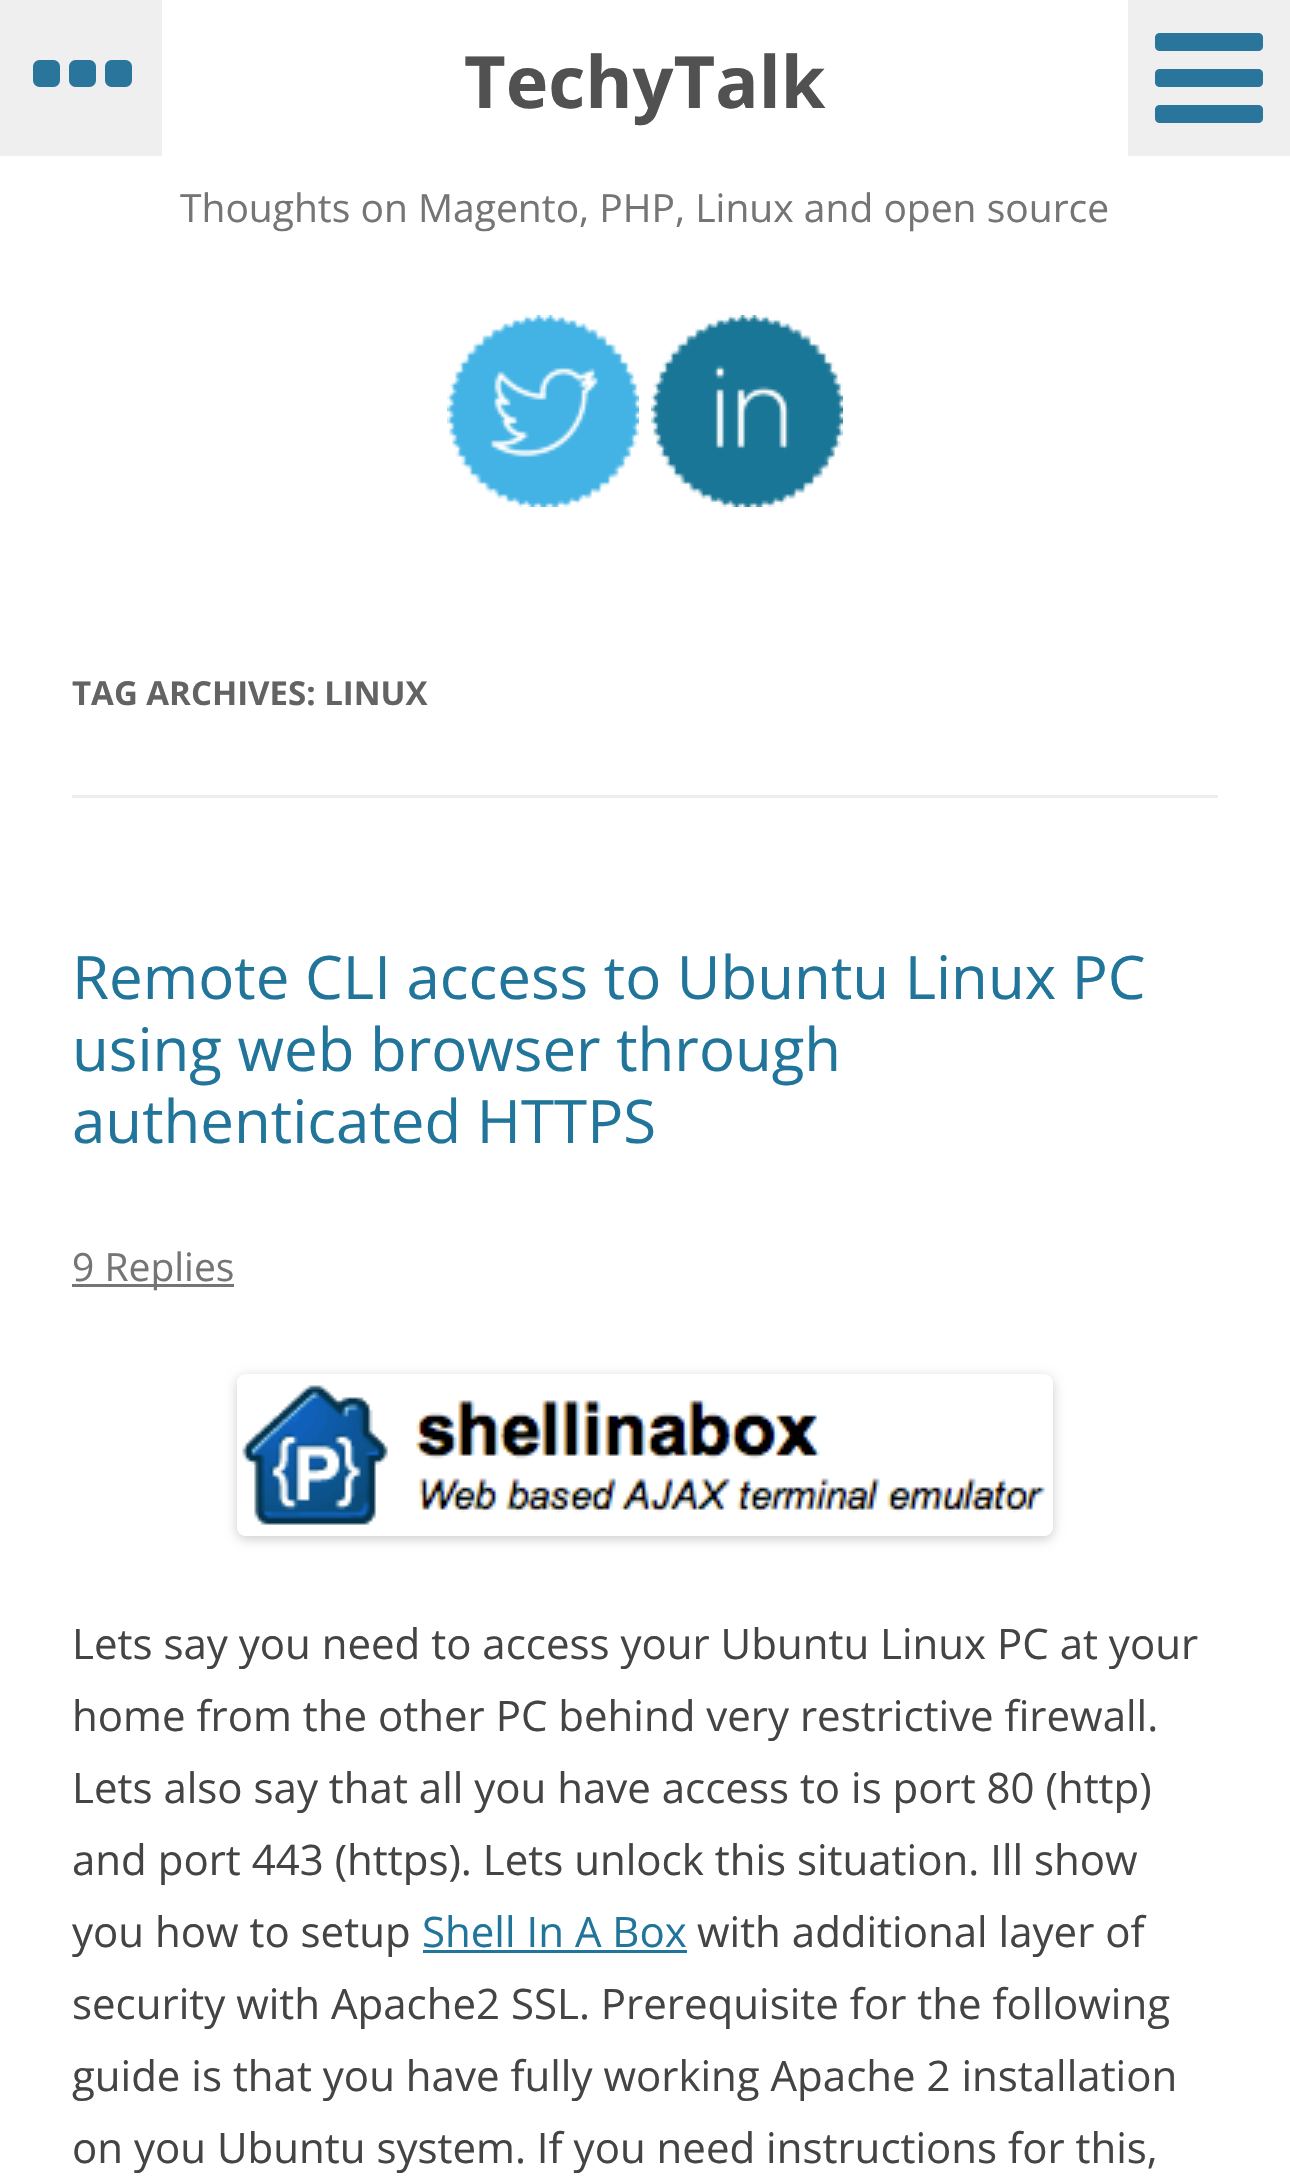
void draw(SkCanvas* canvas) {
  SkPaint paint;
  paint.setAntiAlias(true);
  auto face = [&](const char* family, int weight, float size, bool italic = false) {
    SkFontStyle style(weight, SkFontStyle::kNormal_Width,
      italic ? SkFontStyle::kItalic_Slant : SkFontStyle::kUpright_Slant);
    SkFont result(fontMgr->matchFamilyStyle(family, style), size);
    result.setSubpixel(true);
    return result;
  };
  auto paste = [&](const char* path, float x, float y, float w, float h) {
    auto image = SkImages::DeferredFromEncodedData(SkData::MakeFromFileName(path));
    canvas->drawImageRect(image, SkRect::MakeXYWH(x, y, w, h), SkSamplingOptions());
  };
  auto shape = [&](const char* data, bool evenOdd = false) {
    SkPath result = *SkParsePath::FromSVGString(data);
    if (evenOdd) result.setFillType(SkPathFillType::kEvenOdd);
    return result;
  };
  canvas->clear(0xffffffff);
  paint.setColor(0xffefefef);
  canvas->drawRect(SkRect::MakeXYWH(0, 0, 162, 156), paint);
  paste("img/1.png", 33, 60, 99, 27);
  paste("img/2.png", 447, 315, 192, 192);
  paste("img/3.png", 651, 315, 192, 192);
  canvas->drawRect(SkRect::MakeXYWH(1128, 0, 162, 156), paint);
  paste("img/4.png", 1155, 33, 108, 90);
  paint.setColor(0xffededed);
  canvas->drawRect(SkRect::MakeXYWH(72, 795, 1146, 3), paint);
  paint.setColor(0xff757575);
  canvas->drawRect(SkRect::MakeXYWH(72, 1284, 162, 3), paint);
  canvas->save();
  canvas->clipPath(shape("M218 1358H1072V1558H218ZM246 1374H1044C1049 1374 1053 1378 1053 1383V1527C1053 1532 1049 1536 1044 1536H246C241 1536 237 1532 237 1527V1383C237 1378 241 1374 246 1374Z", true), true);
  paint.setColor(0x33000000);
  paint.setMaskFilter(SkMaskFilter::MakeBlur(kNormal_SkBlurStyle, 6));
  canvas->drawRoundRect(SkRect::MakeXYWH(237, 1377, 816, 162), 9, 9, paint);
  paint.setMaskFilter(nullptr);
  canvas->restore();
  paste("img/5.png", 237, 1380, 816, 156);
  paint.setColor(0xff21759b);
  canvas->drawRect(SkRect::MakeXYWH(423, 1950, 264, 3), paint);
  auto f0 = face("Open Sans", 700, 72);
  paint.setColor(0xff515151);
  canvas->drawString("TechyTalk", 464, 108, f0, paint);
  auto f1 = face("Open Sans", 400, 39);
  paint.setColor(0xff757575);
  canvas->drawString("Thoughts on Magento, PHP, Linux and open source", 180, 222, f1, paint);
  auto f2 = face("Open Sans", 700, 33);
  paint.setColor(0xff636363);
  canvas->drawString("TAG ARCHIVES: LINUX", 72, 705, f2, paint);
  auto f3 = face("Open Sans", 400, 60);
  paint.setColor(0xff21759b);
  {
    const struct { const char* s; float x, y; } items[] = {
      {"Remote CLI access to Ubuntu Linux PC", 72, 999},
      {"using web browser through", 72, 1071},
      {"authenticated HTTPS", 72, 1143},
    };
    for (auto [s, x, y] : items) {
      canvas->drawString(s, x, y, f3, paint);
    }
  }
  paint.setColor(0xff757575);
  canvas->drawString("9 Replies", 72, 1281, f1, paint);
  auto f4 = face("Open Sans", 400, 42);
  paint.setColor(0xff444444);
  {
    const struct { const char* s; float x, y; } items[] = {
      {"Lets say you need to access your Ubuntu Linux PC at your", 72, 1659},
      {"home from the other PC behind very restrictive firewall.", 72, 1731},
      {"Lets also say that all you have access to is port 80 (http)", 72, 1803},
      {"and port 443 (https). Lets unlock this situation. Ill show", 72, 1875},
      {"you how to setup", 72, 1947},
    };
    for (auto [s, x, y] : items) {
      canvas->drawString(s, x, y, f4, paint);
    }
  }
  paint.setColor(0xff21759b);
  canvas->drawString("Shell In A Box", 422, 1947, f4, paint);
  paint.setColor(0xff444444);
  {
    const struct { const char* s; float x, y; } items[] = {
      {"with additional layer of", 697, 1947},
      {"security with Apache2 SSL. Prerequisite for the following", 72, 2019},
      {"guide is that you have fully working Apache 2 installation", 72, 2091},
      {"on you Ubuntu system. If you need instructions for this,", 72, 2163},
    };
    for (auto [s, x, y] : items) {
      canvas->drawString(s, x, y, f4, paint);
    }
  }
}
